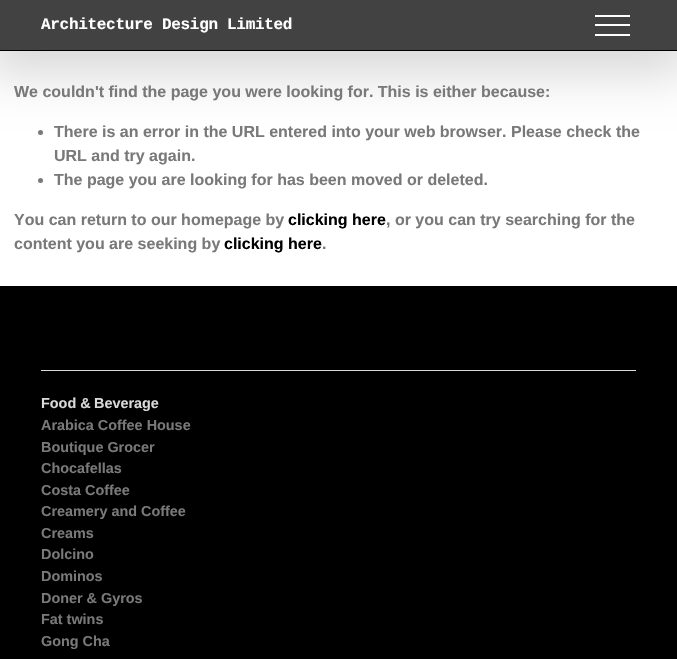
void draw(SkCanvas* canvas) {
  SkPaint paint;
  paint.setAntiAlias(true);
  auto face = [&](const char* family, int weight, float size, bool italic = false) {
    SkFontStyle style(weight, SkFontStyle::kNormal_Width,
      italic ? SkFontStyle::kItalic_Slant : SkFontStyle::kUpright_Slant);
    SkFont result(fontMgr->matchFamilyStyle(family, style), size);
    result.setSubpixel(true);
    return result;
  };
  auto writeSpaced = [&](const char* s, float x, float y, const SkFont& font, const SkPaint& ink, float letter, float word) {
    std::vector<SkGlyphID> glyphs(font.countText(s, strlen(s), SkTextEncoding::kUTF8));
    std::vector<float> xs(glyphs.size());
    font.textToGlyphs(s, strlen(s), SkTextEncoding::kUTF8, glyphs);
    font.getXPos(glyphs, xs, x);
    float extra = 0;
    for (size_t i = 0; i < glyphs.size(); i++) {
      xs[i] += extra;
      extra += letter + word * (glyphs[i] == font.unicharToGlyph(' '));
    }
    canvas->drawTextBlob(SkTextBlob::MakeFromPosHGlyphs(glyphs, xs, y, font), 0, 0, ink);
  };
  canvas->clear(0xffffffff);
  paint.setColor(0xff797979);
  canvas->drawCircle(40.5f, 132.5f, 2.5f, paint);
  paint.setColor(0x26000000);
  paint.setMaskFilter(SkMaskFilter::MakeBlur(kNormal_SkBlurStyle, 24));
  canvas->drawRect(SkRect::MakeXYWH(-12, 0, 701, 75), paint);
  paint.setMaskFilter(nullptr);
  {
    const struct { float x, y, w, h; SkColor color; } items[] = {
      {0, 0, 677, 50, 0xff424242},
      {595, 15, 35, 2, 0xffffffff},
      {595, 24, 35, 2, 0xffffffff},
      {595, 34, 35, 2, 0xffffffff},
      {0, 50, 677, 1, 0xff000000},
    };
    for (auto [x, y, w, h, color] : items) {
      paint.setColor(color);
      canvas->drawRect(SkRect::MakeXYWH(x, y, w, h), paint);
    }
  }
  paint.setColor(0xff797979);
  canvas->drawCircle(40.5f, 180.5f, 2.5f, paint);
  paint.setColor(0xff000000);
  canvas->drawRect(SkRect::MakeXYWH(0, 286, 677, 373), paint);
  paint.setColor(0xffd9d9d9);
  canvas->drawRect(SkRect::MakeXYWH(41, 370, 595, 1), paint);
  auto f0 = face("Liberation Mono", 700, 16);
  paint.setColor(0xffffffff);
  writeSpaced("Architecture Design Limited", 41, 29, f0, paint, -0.3f, 0);
  auto f1 = face("Liberation Sans", 700, 16);
  paint.setColor(0xff797979);
  {
    const struct { const char* s; float x, y; } items[] = {
      {"We couldn't find the page you were looking for. This is either because:", 14, 97},
      {"There is an error in the URL entered into your web browser. Please check the", 54, 137},
      {"URL and try again.", 54, 161},
      {"The page you are looking for has been moved or deleted.", 54, 185},
      {"You can return to our homepage by", 14, 225},
    };
    for (auto [s, x, y] : items) {
      canvas->drawString(s, x, y, f1, paint);
    }
  }
  paint.setColor(0xff000000);
  canvas->drawString("clicking here", 288, 225, f1, paint);
  paint.setColor(0xff797979);
  canvas->drawString(", or you can try searching for the", 386, 225, f1, paint);
  canvas->drawString("content you are seeking by", 14, 249, f1, paint);
  paint.setColor(0xff000000);
  canvas->drawString("clicking here", 224, 249, f1, paint);
  paint.setColor(0xff797979);
  canvas->drawString(".", 322, 249, f1, paint);
  auto f2 = face("Liberation Sans", 700, 14.4f);
  paint.setColor(0xffd9d9d9);
  canvas->drawString("Food &", 41, 408, f2, paint);
  canvas->drawString("Beverage", 94, 408, f2, paint);
  paint.setColor(0xff797979);
  {
    const struct { const char* s; float x, y; } items[] = {
      {"Arabica Coffee House", 41, 430},
      {"Boutique Grocer", 41, 452},
      {"Chocafellas", 41, 473},
      {"Costa Coffee", 41, 495},
      {"Creamery and Coffee", 41, 516},
      {"Creams", 41, 538},
      {"Dolcino", 41, 559},
      {"Dominos", 41, 581},
      {"Doner & Gyros", 41, 603},
      {"Fat twins", 41, 624},
      {"Gong Cha", 41, 646},
    };
    for (auto [s, x, y] : items) {
      canvas->drawString(s, x, y, f2, paint);
    }
  }
}
